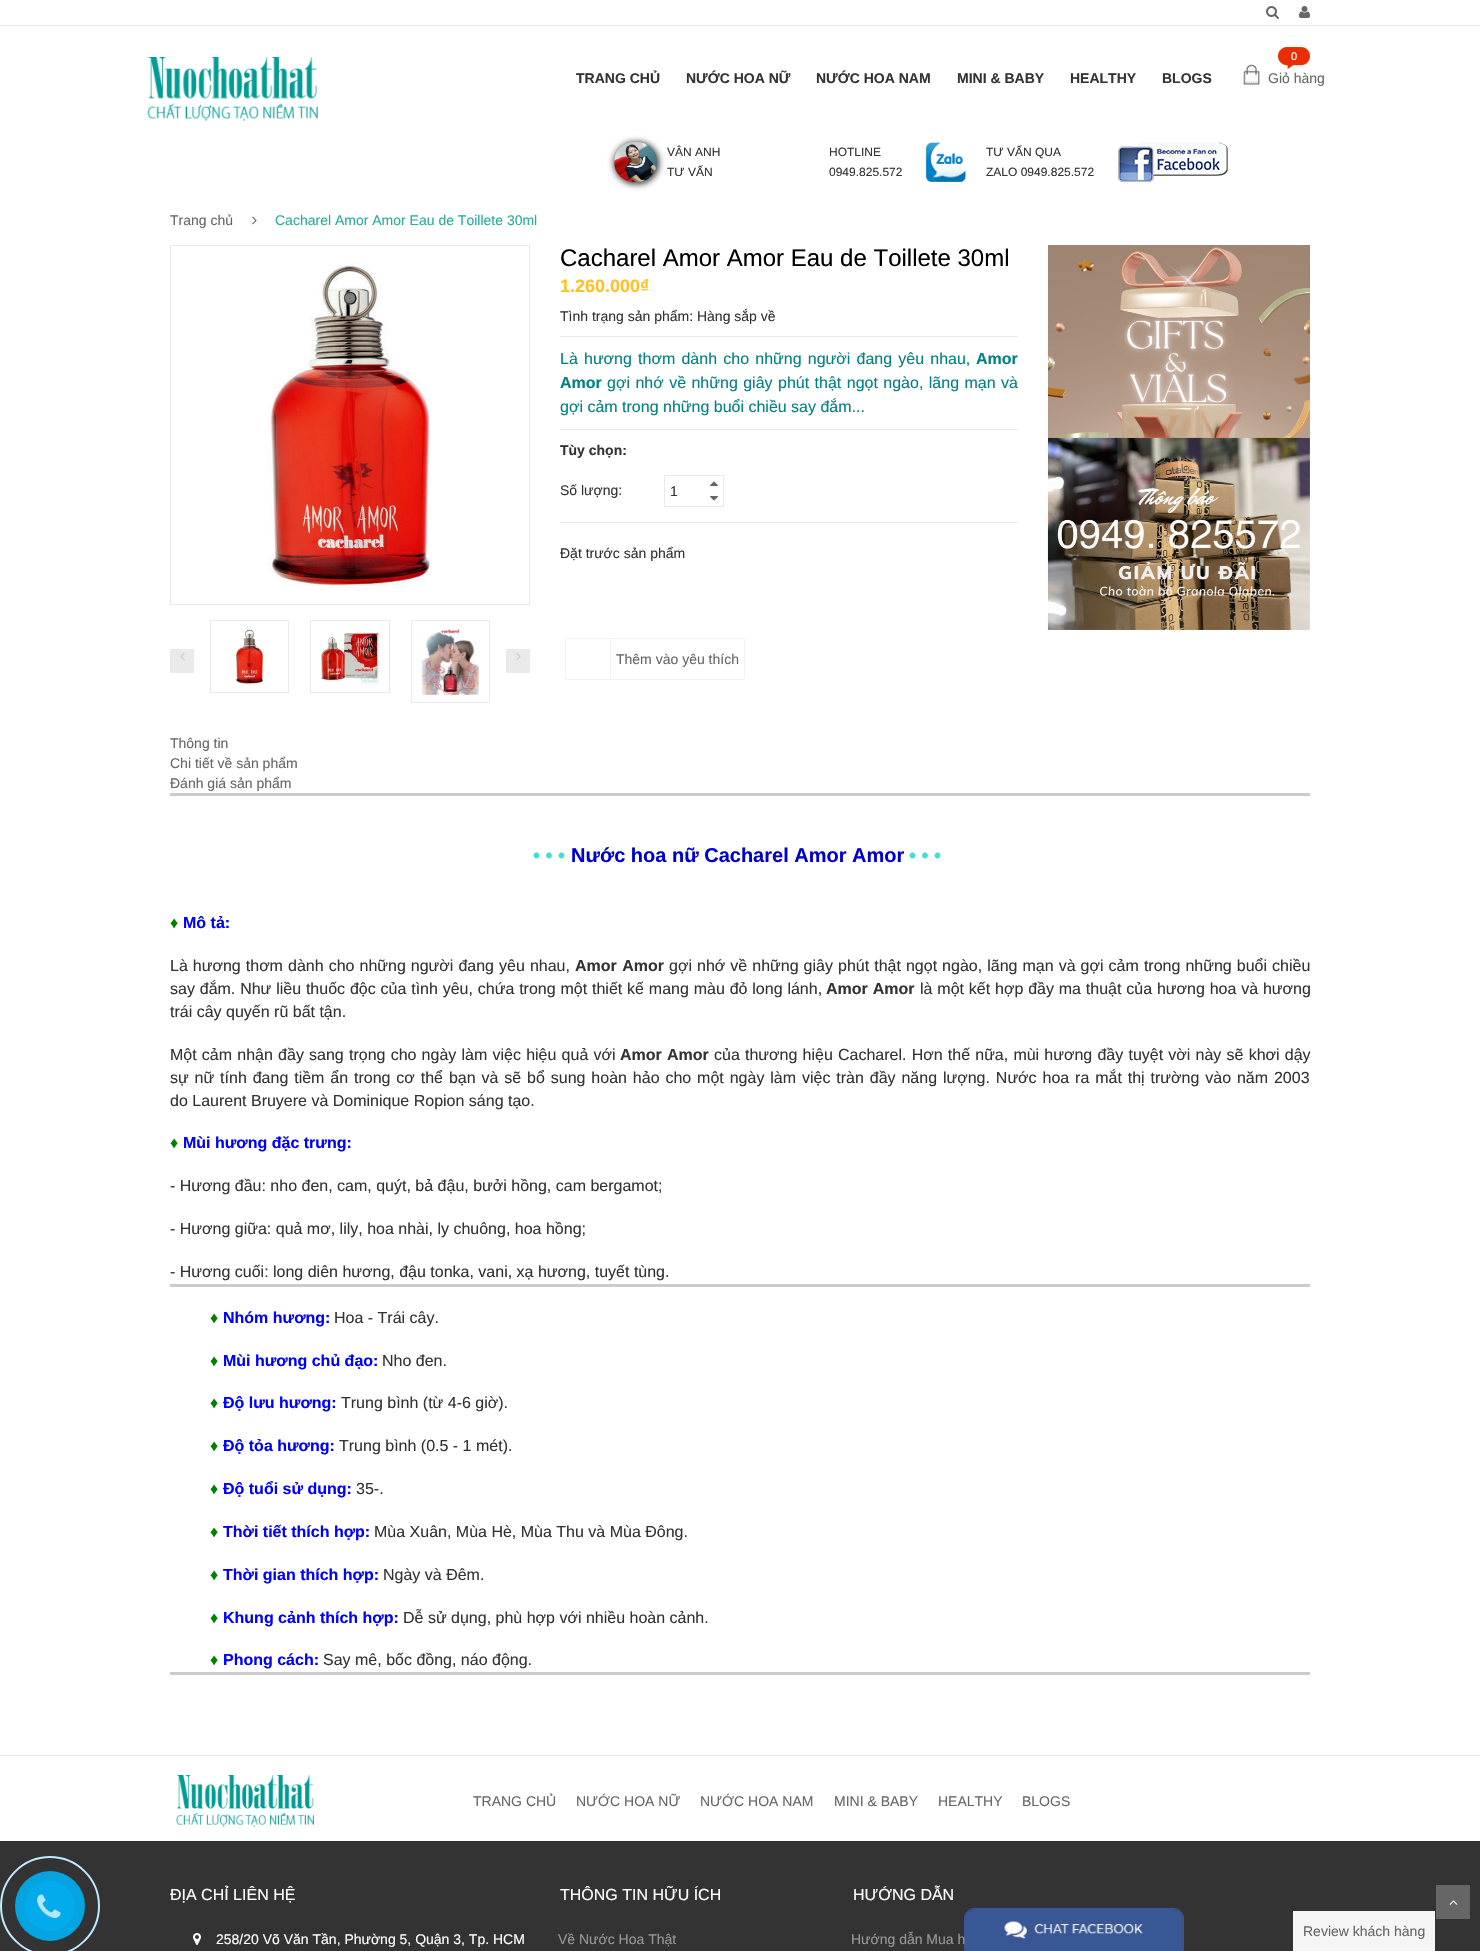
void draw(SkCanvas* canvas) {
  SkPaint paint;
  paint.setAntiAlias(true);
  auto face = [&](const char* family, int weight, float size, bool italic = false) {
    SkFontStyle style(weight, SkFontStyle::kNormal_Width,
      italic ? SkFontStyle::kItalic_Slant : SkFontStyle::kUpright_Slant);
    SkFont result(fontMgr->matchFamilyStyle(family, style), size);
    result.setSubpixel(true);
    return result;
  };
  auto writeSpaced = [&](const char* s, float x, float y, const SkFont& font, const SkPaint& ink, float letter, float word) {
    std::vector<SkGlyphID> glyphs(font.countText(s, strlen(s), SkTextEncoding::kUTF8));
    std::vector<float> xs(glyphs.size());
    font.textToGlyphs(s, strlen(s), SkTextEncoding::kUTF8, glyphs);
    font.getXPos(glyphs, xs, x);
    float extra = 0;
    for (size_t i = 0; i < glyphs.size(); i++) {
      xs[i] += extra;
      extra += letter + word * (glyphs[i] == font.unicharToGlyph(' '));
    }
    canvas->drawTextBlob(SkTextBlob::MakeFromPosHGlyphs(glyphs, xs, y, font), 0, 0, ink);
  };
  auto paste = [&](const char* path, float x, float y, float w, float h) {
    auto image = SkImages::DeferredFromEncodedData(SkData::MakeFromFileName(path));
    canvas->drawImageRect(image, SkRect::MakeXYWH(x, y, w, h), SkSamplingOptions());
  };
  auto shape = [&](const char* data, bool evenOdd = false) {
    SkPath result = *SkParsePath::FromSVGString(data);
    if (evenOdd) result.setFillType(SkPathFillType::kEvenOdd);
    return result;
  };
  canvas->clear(0xffffffff);
  paint.setColor(0xffeaeaea);
  canvas->drawRect(SkRect::MakeXYWH(0, 25, 1480, 1), paint);
  paste("img/1.png", 1266, 6, 13, 13);
  paste("img/2.png", 1299, 6, 11, 12);
  paste("img/3.png", 147, 57, 171, 64);
  paste("img/4.png", 1243, 64, 17, 21);
  paste("img/5.png", 1278, 47, 32, 22);
  paint.setColor(0xff333333);
  paint.setMaskFilter(SkMaskFilter::MakeBlur(kNormal_SkBlurStyle, 3));
  canvas->drawRoundRect(SkRect::MakeXYWH(614, 142, 45, 42), 21, 21, paint);
  paint.setMaskFilter(nullptr);
  paste("img/6.png", 614, 142, 43, 40);
  paste("img/7.png", 926, 142, 40, 40);
  paste("img/8.png", 1118, 142, 110, 40);
  paste("img/9.png", 252, 216, 5, 9);
  paint.setStroke(true);
  paint.setStrokeWidth(1);
  paint.setColor(0xffeaeaea);
  canvas->drawRect(SkRect::MakeXYWH(170.5f, 245.5f, 359, 359), paint);
  paste("img/10.png", 267, 262, 163, 325);
  canvas->drawRect(SkRect::MakeXYWH(210.5f, 620.5f, 78, 72), paint);
  paste("img/11.png", 235, 629, 29, 56);
  canvas->drawRect(SkRect::MakeXYWH(310.5f, 620.5f, 79, 72), paint);
  paste("img/12.png", 321, 632, 58, 53);
  canvas->drawRect(SkRect::MakeXYWH(411.5f, 620.5f, 78, 82), paint);
  paste("img/13.png", 421, 629, 58, 66);
  paint.setStroke(false);
  canvas->drawRect(SkRect::MakeXYWH(170, 649, 24, 24), paint);
  paste("img/14.png", 180, 652, 5, 9);
  canvas->drawRect(SkRect::MakeXYWH(506, 649, 24, 24), paint);
  paste("img/15.png", 516, 652, 5, 9);
  canvas->drawRect(SkRect::MakeXYWH(560, 336, 458, 1), paint);
  canvas->drawRect(SkRect::MakeXYWH(560, 429, 458, 1), paint);
  paint.setStroke(true);
  canvas->drawRect(SkRect::MakeXYWH(664.5f, 475.5f, 59, 31), paint);
  paste("img/16.png", 710, 481, 8, 5);
  paste("img/17.png", 710, 496, 8, 5);
  paint.setStroke(false);
  canvas->drawRect(SkRect::MakeXYWH(560, 522, 458, 1), paint);
  paint.setStroke(true);
  paint.setColor(0xfff2f2f2);
  canvas->drawRoundRect(SkRect::MakeXYWH(565.5f, 638.5f, 179, 41), 1.5f, 1.5f, paint);
  paint.setStroke(false);
  canvas->drawRect(SkRect::MakeXYWH(610, 639, 1, 40), paint);
  paste("img/18.png", 1048, 245, 262, 193);
  paste("img/19.png", 1047, 437, 263, 193);
  {
    const struct { float x, y, w, h; SkColor color; } items[] = {
      {170, 793, 1140, 3, 0xffcccccc},
      {170, 1284, 1140, 3, 0xffcccccc},
      {170, 1672, 1140, 3, 0xffcccccc},
      {0, 1841, 1480, 110, 0xff333333},
    };
    for (auto [x, y, w, h, color] : items) {
      paint.setColor(color);
      canvas->drawRect(SkRect::MakeXYWH(x, y, w, h), paint);
    }
  }
  paint.setStroke(true);
  paint.setStrokeWidth(2);
  paint.setColor(0xffbfebfc);
  canvas->drawCircle(50, 1906, 49, paint);
  paint.setStroke(false);
  paint.setColor(0xff05a3df);
  canvas->drawCircle(50, 1906, 35, paint);
  paint.setColor(0xff02abec);
  canvas->drawCircle(50, 1906, 25, paint);
  paste("img/20.png", 37, 1894, 24, 24);
  paint.setColor(0xffeaeaea);
  canvas->drawRect(SkRect::MakeXYWH(0, 1755, 1480, 1), paint);
  paste("img/21.png", 176, 1775, 138, 52);
  paste("img/22.png", 193, 1933, 8, 12);
  paint.setColor(0xff666666);
  canvas->drawRect(SkRect::MakeXYWH(1436, 1885, 34, 34), paint);
  paste("img/23.png", 1449, 1900, 9, 5);
  paint.setStroke(true);
  paint.setStrokeWidth(1);
  paint.setColor(0xff3a5795);
  canvas->drawPath(shape("M974 1908.5H1174C1179 1908.5 1183.5 1913 1183.5 1918V1950.5H964.5V1918C964.5 1913 969 1908.5 974 1908.5Z"), paint);
  paste("img/24.png", 965, 1909, 218, 41);
  paint.setStroke(false);
  paint.setColor(0xfff5f5f5);
  canvas->drawRect(SkRect::MakeXYWH(1293, 1911, 142, 40), paint);
  auto f0 = face("Liberation Sans", 700, 14);
  paint.setColor(0xff333333);
  {
    const struct { const char* s; float x, y; } items[] = {
      {"TRANG CHỦ", 576, 83},
      {"NƯỚC HOA NỮ", 686, 83},
      {"NƯỚC HOA NAM", 816, 83},
      {"MINI & BABY", 957, 83},
      {"HEALTHY", 1070, 83},
      {"BLOGS", 1162, 83},
    };
    for (auto [s, x, y] : items) {
      canvas->drawString(s, x, y, f0, paint);
    }
  }
  auto f1 = face("Liberation Sans", 400, 11);
  paint.setColor(0xffffffff);
  canvas->drawString("0", 1291, 60, f1, paint);
  auto f2 = face("Liberation Sans", 400, 14);
  paint.setColor(0xff666666);
  canvas->drawString("Giỏ hàng", 1268, 83, f2, paint);
  auto f3 = face("Liberation Sans", 400, 12);
  paint.setColor(0xff333333);
  {
    const struct { const char* s; float x, y; } items[] = {
      {"VÂN ANH", 667, 156},
      {"TƯ VẤN", 667, 176},
      {"HOTLINE", 829, 156},
      {"0949.825.572", 829, 176},
      {"TƯ VẤN QUA", 986, 156},
      {"ZALO 0949.825.572", 986, 176},
    };
    for (auto [s, x, y] : items) {
      canvas->drawString(s, x, y, f3, paint);
    }
  }
  paint.setColor(0xff666666);
  canvas->drawString("Trang chủ", 170, 225, f2, paint);
  paint.setColor(0xff28ac9e);
  canvas->drawString("Cacharel Amor Amor Eau de Toillete 30ml", 275, 225, f2, paint);
  auto f4 = face("Liberation Sans", 400, 24);
  paint.setColor(0xff000000);
  canvas->drawString("Cacharel Amor Amor Eau de Toillete 30ml", 560, 266, f4, paint);
  auto f5 = face("Liberation Sans", 700, 18);
  paint.setColor(0xffffc125);
  canvas->drawString("1.260.000₫", 560, 292, f5, paint);
  paint.setColor(0xff333333);
  canvas->drawString("Tình trạng sản phẩm: Hàng sắp về", 560, 321, f2, paint);
  auto f6 = face("Liberation Sans", 400, 16);
  paint.setColor(0xff008080);
  writeSpaced("Là hương thơm dành cho những người đang yêu nhau,", 560, 364, f6, paint, 0, 1.75f);
  auto f7 = face("Liberation Sans", 700, 16);
  canvas->drawString("Amor", 976, 364, f7, paint);
  canvas->drawString("Amor", 560, 388, f7, paint);
  writeSpaced("gợi nhớ về những giây phút thật ngọt ngào, lãng mạn và", 607, 388, f6, paint, 0, 1);
  canvas->drawString("gợi cảm trong những buổi chiều say đắm...", 560, 412, f6, paint);
  paint.setColor(0xff333333);
  canvas->drawString("Tùy chọn:", 560, 455, f0, paint);
  {
    const struct { const char* s; float x, y; } items[] = {
      {"Số lượng:", 560, 495},
      {"1", 670, 496},
      {"Đặt trước sản phẩm", 560, 558},
    };
    for (auto [s, x, y] : items) {
      canvas->drawString(s, x, y, f2, paint);
    }
  }
  paint.setColor(0xff666666);
  {
    const struct { const char* s; float x, y; } items[] = {
      {"Thêm vào yêu thích", 616, 664},
      {"Thông tin", 170, 748},
      {"Chi tiết về sản phẩm", 170, 768},
      {"Đánh giá sản phẩm", 170, 788},
    };
    for (auto [s, x, y] : items) {
      canvas->drawString(s, x, y, f2, paint);
    }
  }
  auto f8 = face("Liberation Sans", 700, 20);
  paint.setColor(0xff40e0d0);
  canvas->drawString("• • •", 533, 862, f8, paint);
  paint.setColor(0xff0000cd);
  canvas->drawString("Nước hoa nữ Cacharel Amor Amor", 571, 862, f8, paint);
  paint.setColor(0xff40e0d0);
  canvas->drawString("• • •", 909, 862, f8, paint);
  paint.setColor(0xff008000);
  canvas->drawString("♦", 170, 928, f6, paint);
  paint.setColor(0xff0000ff);
  canvas->drawString("Mô tả:", 183, 928, f7, paint);
  paint.setColor(0xff333333);
  writeSpaced("Là hương thơm dành cho những người đang yêu nhau,", 170, 971, f6, paint, 0, 0.6f);
  writeSpaced("Amor Amor", 575, 971, f7, paint, 0, 1);
  writeSpaced("gợi nhớ về những giây phút thật ngọt ngào, lãng mạn và gợi cảm trong những buổi chiều", 669, 971, f6, paint, 0, 0.6f);
  writeSpaced("say đắm. Như liều thuốc độc của tình yêu, chứa trong một thiết kế mang màu đỏ long lánh,", 170, 994, f6, paint, 0, 0.4f);
  writeSpaced("Amor Amor", 826, 994, f7, paint, 0, 0.4f);
  writeSpaced("là một kết hợp đầy ma thuật của hương hoa và hương", 920, 994, f6, paint, 0, 0.4f);
  canvas->drawString("trái cây quyến rũ bất tận.", 170, 1017, f6, paint);
  writeSpaced("Một cảm nhận đầy sang trọng cho ngày làm việc hiệu quả với", 170, 1060, f6, paint, 0, 0.75f);
  writeSpaced("Amor Amor", 620, 1060, f7, paint, 0, 0.75f);
  writeSpaced("của thương hiệu Cacharel. Hơn thế nữa, mùi hương đầy tuyệt vời này sẽ khơi dậy", 714, 1060, f6, paint, 0, 0.75f);
  writeSpaced("sự nữ tính đang tiềm ẩn trong cơ thể bạn và sẽ bổ sung hoàn hảo cho một ngày làm việc tràn đầy năng lượng. Nước hoa ra mắt thị trường vào năm 2003", 170, 1083, f6, paint, 0, 1.45f);
  canvas->drawString("do Laurent Bruyere và Dominique Ropion sáng tạo.", 170, 1106, f6, paint);
  paint.setColor(0xff008000);
  canvas->drawString("♦", 170, 1148, f6, paint);
  paint.setColor(0xff0000ff);
  canvas->drawString("Mùi hương đặc trưng:", 183, 1148, f7, paint);
  paint.setColor(0xff333333);
  {
    const struct { const char* s; float x, y; } items[] = {
      {"- Hương đầu: nho đen, cam, quýt, bả đậu, bưởi hồng, cam bergamot;", 170, 1191},
      {"- Hương giữa: quả mơ, lily, hoa nhài, ly chuông, hoa hồng;", 170, 1234},
      {"- Hương cuối: long diên hương, đậu tonka, vani, xạ hương, tuyết tùng.", 170, 1277},
    };
    for (auto [s, x, y] : items) {
      canvas->drawString(s, x, y, f6, paint);
    }
  }
  paint.setColor(0xff008000);
  canvas->drawString("♦", 210, 1323, f6, paint);
  paint.setColor(0xff0000ff);
  canvas->drawString("Nhóm hương:", 223, 1323, f7, paint);
  paint.setColor(0xff333333);
  canvas->drawString("Hoa - Trái cây.", 334, 1323, f6, paint);
  paint.setColor(0xff008000);
  canvas->drawString("♦", 210, 1366, f6, paint);
  paint.setColor(0xff0000ff);
  canvas->drawString("Mùi hương chủ đạo:", 223, 1366, f7, paint);
  paint.setColor(0xff333333);
  canvas->drawString("Nho đen.", 382, 1366, f6, paint);
  paint.setColor(0xff008000);
  canvas->drawString("♦", 210, 1408, f6, paint);
  paint.setColor(0xff0000ff);
  canvas->drawString("Độ lưu hương:", 223, 1408, f7, paint);
  paint.setColor(0xff333333);
  canvas->drawString("Trung bình (từ 4-6 giờ).", 341, 1408, f6, paint);
  paint.setColor(0xff008000);
  canvas->drawString("♦", 210, 1451, f6, paint);
  paint.setColor(0xff0000ff);
  canvas->drawString("Độ tỏa hương:", 223, 1451, f7, paint);
  paint.setColor(0xff333333);
  canvas->drawString("Trung bình (0.5 - 1 mét).", 339, 1451, f6, paint);
  paint.setColor(0xff008000);
  canvas->drawString("♦", 210, 1494, f6, paint);
  paint.setColor(0xff0000ff);
  canvas->drawString("Độ tuổi sử dụng:", 223, 1494, f7, paint);
  paint.setColor(0xff333333);
  canvas->drawString("35-.", 356, 1494, f6, paint);
  paint.setColor(0xff008000);
  canvas->drawString("♦", 210, 1537, f6, paint);
  paint.setColor(0xff0000ff);
  canvas->drawString("Thời tiết thích hợp:", 223, 1537, f7, paint);
  paint.setColor(0xff333333);
  canvas->drawString("Mùa Xuân, Mùa Hè, Mùa Thu và Mùa Đông.", 374, 1537, f6, paint);
  paint.setColor(0xff008000);
  canvas->drawString("♦", 210, 1580, f6, paint);
  paint.setColor(0xff0000ff);
  canvas->drawString("Thời gian thích hợp:", 223, 1580, f7, paint);
  paint.setColor(0xff333333);
  canvas->drawString("Ngày và Đêm.", 383, 1580, f6, paint);
  paint.setColor(0xff008000);
  canvas->drawString("♦", 210, 1623, f6, paint);
  paint.setColor(0xff0000ff);
  canvas->drawString("Khung cảnh thích hợp:", 223, 1623, f7, paint);
  paint.setColor(0xff333333);
  canvas->drawString("Dễ sử dụng, phù hợp với nhiều hoàn cảnh.", 403, 1623, f6, paint);
  paint.setColor(0xff008000);
  canvas->drawString("♦", 210, 1665, f6, paint);
  paint.setColor(0xff0000ff);
  canvas->drawString("Phong cách:", 223, 1665, f7, paint);
  paint.setColor(0xff333333);
  canvas->drawString("Say mê, bốc đồng, náo động.", 323, 1665, f6, paint);
  paint.setColor(0xff666666);
  {
    const struct { const char* s; float x, y; } items[] = {
      {"TRANG CHỦ", 473, 1806},
      {"NƯỚC HOA NỮ", 576, 1806},
      {"NƯỚC HOA NAM", 700, 1806},
      {"MINI & BABY", 834, 1806},
      {"HEALTHY", 938, 1806},
      {"BLOGS", 1022, 1806},
    };
    for (auto [s, x, y] : items) {
      canvas->drawString(s, x, y, f2, paint);
    }
  }
  paint.setColor(0xffffffff);
  canvas->drawString("ĐỊA CHỈ LIÊN HỆ", 170, 1900, f6, paint);
  canvas->drawString("258/20 Võ Văn Tần, Phường 5, Quận 3, Tp. HCM", 216, 1944, f2, paint);
  canvas->drawString("THÔNG TIN HỮU ÍCH", 560, 1900, f6, paint);
  paint.setColor(0xff999999);
  canvas->drawString("Về Nước Hoa Thật", 558, 1944, f2, paint);
  paint.setColor(0xffffffff);
  canvas->drawString("HƯỚNG DẪN", 853, 1900, f6, paint);
  paint.setColor(0xff999999);
  canvas->drawString("Hướng dẫn Mua h", 851, 1944, f2, paint);
  paint.setColor(0xff666666);
  canvas->drawString("Review khách hàng", 1303, 1936, f2, paint);
}
